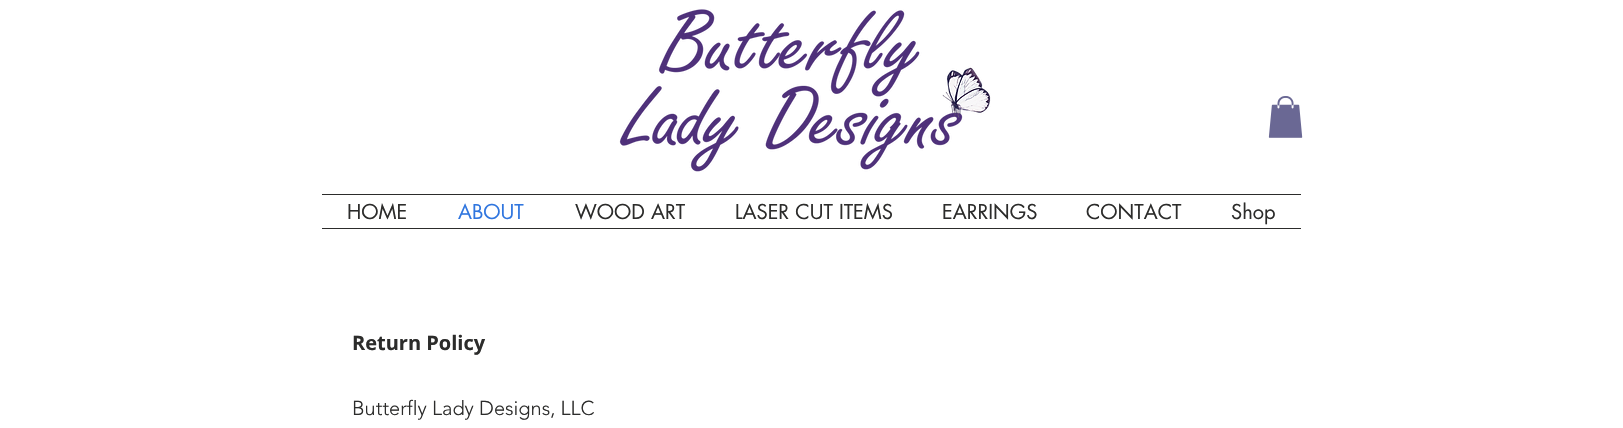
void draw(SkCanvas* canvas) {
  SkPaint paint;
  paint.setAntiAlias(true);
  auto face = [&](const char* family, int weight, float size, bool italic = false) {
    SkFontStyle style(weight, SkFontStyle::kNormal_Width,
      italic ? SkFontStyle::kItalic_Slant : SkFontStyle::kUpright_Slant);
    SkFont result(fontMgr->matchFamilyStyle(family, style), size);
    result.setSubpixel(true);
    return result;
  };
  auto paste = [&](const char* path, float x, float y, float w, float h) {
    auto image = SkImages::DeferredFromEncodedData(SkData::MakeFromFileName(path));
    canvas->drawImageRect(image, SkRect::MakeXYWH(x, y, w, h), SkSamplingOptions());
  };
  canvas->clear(0xffffffff);
  paste("img/1.png", 619, 9, 372, 163);
  paste("img/2.png", 1268, 96, 35, 42);
  paint.setColor(0xff2c2c2b);
  canvas->drawRect(SkRect::MakeXYWH(322, 194, 979, 1), paint);
  canvas->drawRect(SkRect::MakeXYWH(322, 228, 979, 1), paint);
  auto f0 = face("futura", 400, 20);
  canvas->drawString("HOME", 347, 219, f0, paint);
  paint.setColor(0xff3076df);
  canvas->drawString("ABOUT", 458, 219, f0, paint);
  paint.setColor(0xff2c2c2b);
  {
    const struct { const char* s; float x, y; } items[] = {
      {"WOOD ART", 575, 219},
      {"LASER CUT ITEMS", 735, 219},
      {"EARRINGS", 942, 219},
      {"CONTACT", 1086, 219},
      {"Shop", 1231, 219},
    };
    for (auto [s, x, y] : items) {
      canvas->drawString(s, x, y, f0, paint);
    }
  }
  auto f1 = face("Open Sans", 700, 20);
  canvas->drawString("Return Policy", 352, 350, f1, paint);
  auto f2 = face("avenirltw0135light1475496", 300, 20);
  canvas->drawString("Butterfly Lady Designs, LLC", 352, 415, f2, paint);
}
